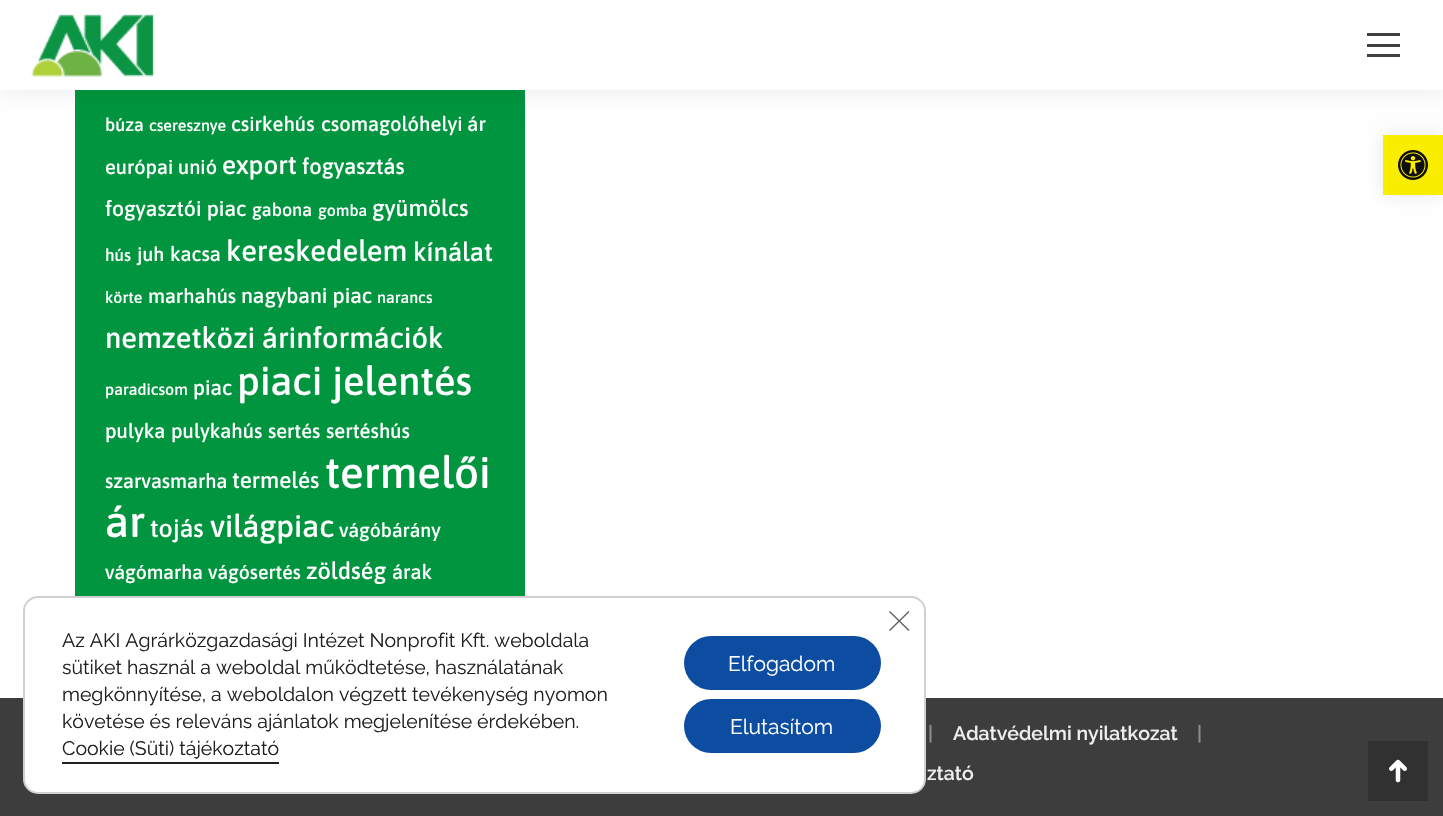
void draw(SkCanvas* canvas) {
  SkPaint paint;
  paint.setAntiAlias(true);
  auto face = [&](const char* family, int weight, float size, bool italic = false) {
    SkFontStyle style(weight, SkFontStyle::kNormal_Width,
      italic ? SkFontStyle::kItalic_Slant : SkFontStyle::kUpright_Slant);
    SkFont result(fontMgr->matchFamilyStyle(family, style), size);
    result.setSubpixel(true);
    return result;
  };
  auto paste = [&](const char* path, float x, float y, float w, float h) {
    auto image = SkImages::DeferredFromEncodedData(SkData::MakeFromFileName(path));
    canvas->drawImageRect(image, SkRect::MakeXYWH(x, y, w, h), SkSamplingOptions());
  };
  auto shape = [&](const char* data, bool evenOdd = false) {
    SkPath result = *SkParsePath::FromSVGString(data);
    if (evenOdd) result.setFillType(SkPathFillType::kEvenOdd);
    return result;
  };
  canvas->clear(0xffffffff);
  paint.setColor(0xff00953e);
  canvas->drawRect(SkRect::MakeXYWH(75, 90, 450, 506), paint);
  paint.setColor(0x12000000);
  paint.setMaskFilter(SkMaskFilter::MakeBlur(kNormal_SkBlurStyle, 11));
  canvas->drawRect(SkRect::MakeXYWH(-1, -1, 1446, 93), paint);
  paint.setMaskFilter(nullptr);
  paint.setColor(0xffffffff);
  canvas->drawRect(SkRect::MakeXYWH(0, 0, 1443, 90), paint);
  paste("img/1.png", 31, 14, 123, 63);
  {
    const struct { float x, y, w, h; SkColor color; } items[] = {
      {1367, 33, 33, 3, 0xff404041},
      {1367, 44, 33, 3, 0xff404041},
      {1367, 54, 33, 3, 0xff404041},
      {0, 698, 1443, 118, 0xff3d3d3d},
      {1368, 741, 60, 60, 0xff313131},
    };
    for (auto [x, y, w, h, color] : items) {
      paint.setColor(color);
      canvas->drawRect(SkRect::MakeXYWH(x, y, w, h), paint);
    }
  }
  paste("img/2.png", 1389, 759, 18, 24);
  paint.setColor(0x1a000000);
  paint.setMaskFilter(SkMaskFilter::MakeBlur(kNormal_SkBlurStyle, 7.5f));
  canvas->drawRect(SkRect::MakeXYWH(1383, 135, 60, 60), paint);
  paint.setMaskFilter(nullptr);
  paint.setColor(0xfff9ed00);
  canvas->drawRect(SkRect::MakeXYWH(1383, 135, 60, 60), paint);
  paste("img/3.png", 1398, 150, 30, 30);
  paint.setColor(0xffffffff);
  canvas->drawRoundRect(SkRect::MakeXYWH(24, 597, 901, 196), 14, 14, paint);
  paint.setStroke(true);
  paint.setStrokeWidth(2);
  paint.setColor(0xffd3ced2);
  canvas->drawRoundRect(SkRect::MakeXYWH(24, 597, 901, 196), 14, 14, paint);
  paint.setStroke(false);
  paint.setColor(0xff202020);
  canvas->drawRect(SkRect::MakeXYWH(62, 762, 217, 2), paint);
  paint.setColor(0xff626262);
  canvas->drawPath(shape("M908.5 611L909.5 612L890 631L889 630Z"), paint);
  canvas->drawPath(shape("M889 612L890 611L909.5 630L908.5 631Z"), paint);
  paint.setColor(0xff0c4da2);
  canvas->drawRoundRect(SkRect::MakeXYWH(684, 636, 197, 54), 27, 27, paint);
  canvas->drawRoundRect(SkRect::MakeXYWH(684, 699, 197, 54), 27, 27, paint);
  auto f0 = face("Asap", 500, 18);
  paint.setColor(0xffffffff);
  canvas->drawString("búza", 105, 131, f0, paint);
  auto f1 = face("Asap", 500, 16);
  canvas->drawString("cseresznye", 149, 131, f1, paint);
  auto f2 = face("Asap", 500, 20.25f);
  canvas->drawString("csirkehús", 231, 131, f2, paint);
  canvas->drawString("csomagolóhelyi ár", 321, 131, f2, paint);
  auto f3 = face("Asap", 500, 20);
  canvas->drawString("európai unió", 105, 174, f3, paint);
  auto f4 = face("Asap", 500, 26);
  canvas->drawString("export", 222, 174, f4, paint);
  auto f5 = face("Asap", 500, 22);
  canvas->drawString("fogyasztás", 302, 174, f5, paint);
  auto f6 = face("Asap", 500, 21.25f);
  canvas->drawString("fogyasztói piac", 105, 216, f6, paint);
  canvas->drawString("gabona", 252, 216, f0, paint);
  canvas->drawString("gomba", 318, 216, f1, paint);
  auto f7 = face("Asap", 500, 23);
  canvas->drawString("gyümölcs", 372, 216, f7, paint);
  auto f8 = face("Asap", 500, 17);
  canvas->drawString("hús", 105, 261, f8, paint);
  auto f9 = face("Asap", 500, 19.5f);
  canvas->drawString("juh", 137, 261, f9, paint);
  canvas->drawString("kacsa", 170, 261, f2, paint);
  auto f10 = face("Asap", 500, 29.1f);
  canvas->drawString("kereskedelem", 226, 261, f10, paint);
  canvas->drawString("kínálat", 413, 261, f4, paint);
  canvas->drawString("körte", 105, 303, f1, paint);
  canvas->drawString("marhahús", 148, 303, f3, paint);
  canvas->drawString("nagybani piac", 241, 303, f6, paint);
  canvas->drawString("narancs", 377, 303, f1, paint);
  canvas->drawString("nemzetközi árinformációk", 105, 348, f10, paint);
  canvas->drawString("paradicsom", 105, 395, f1, paint);
  auto f11 = face("Asap", 500, 21);
  canvas->drawString("piac", 193, 395, f11, paint);
  auto f12 = face("Asap", 500, 40);
  canvas->drawString("piaci jelentés", 237, 395, f12, paint);
  canvas->drawString("pulyka", 105, 438, f2, paint);
  canvas->drawString("pulykahús", 171, 438, f2, paint);
  canvas->drawString("sertés", 268, 438, f3, paint);
  canvas->drawString("sertéshús", 326, 438, f2, paint);
  canvas->drawString("szarvasmarha", 105, 488, f3, paint);
  auto f13 = face("Asap", 500, 22.5f);
  canvas->drawString("termelés", 232, 488, f13, paint);
  auto f14 = face("Asap", 500, 44);
  canvas->drawString("termelői", 325, 488, f14, paint);
  canvas->drawString("ár", 105, 537, f14, paint);
  auto f15 = face("Asap", 500, 25);
  canvas->drawString("tojás", 150, 537, f15, paint);
  auto f16 = face("Asap", 500, 31);
  canvas->drawString("világpiac", 210, 537, f16, paint);
  {
    const struct { const char* s; float x, y; } items[] = {
      {"vágóbárány", 339, 537},
      {"vágómarha", 105, 579},
      {"vágósertés", 208, 579},
    };
    for (auto [s, x, y] : items) {
      canvas->drawString(s, x, y, f9, paint);
    }
  }
  auto f17 = face("Asap", 500, 23.5f);
  canvas->drawString("zöldség", 306, 579, f17, paint);
  canvas->drawString("árak", 392, 579, f2, paint);
  auto f18 = face("Raleway", 600, 19.5f);
  paint.setColor(0xff8b8d94);
  canvas->drawString("|", 928, 740, f18, paint);
  paint.setColor(0xffeeeeee);
  canvas->drawString("Adatvédelmi nyilatkozat", 953, 740, f18, paint);
  paint.setColor(0xff8b8d94);
  canvas->drawString("|", 1197, 740, f18, paint);
  paint.setColor(0xffeeeeee);
  canvas->drawString("ztató", 927, 780, f18, paint);
  auto f19 = face("Raleway", 400, 19.5f);
  paint.setColor(0xff202020);
  {
    const struct { const char* s; float x, y; } items[] = {
      {"Az AKI Agrárközgazdasági Intézet Nonprofit Kft. weboldala", 62, 647},
      {"sütiket használ a weboldal működtetése, használatának", 62, 674},
      {"megkönnyítése, a weboldalon végzett tevékenység nyomon", 62, 701},
      {"követése és releváns ajánlatok megjelenítése érdekében.", 62, 728},
      {"Cookie (Süti) tájékoztató", 62, 755},
    };
    for (auto [s, x, y] : items) {
      canvas->drawString(s, x, y, f19, paint);
    }
  }
  auto f20 = face("Raleway", 400, 21);
  paint.setColor(0xffffffff);
  canvas->drawString("Elfogadom", 728, 671, f20, paint);
  canvas->drawString("Elutasítom", 730, 734, f20, paint);
}
